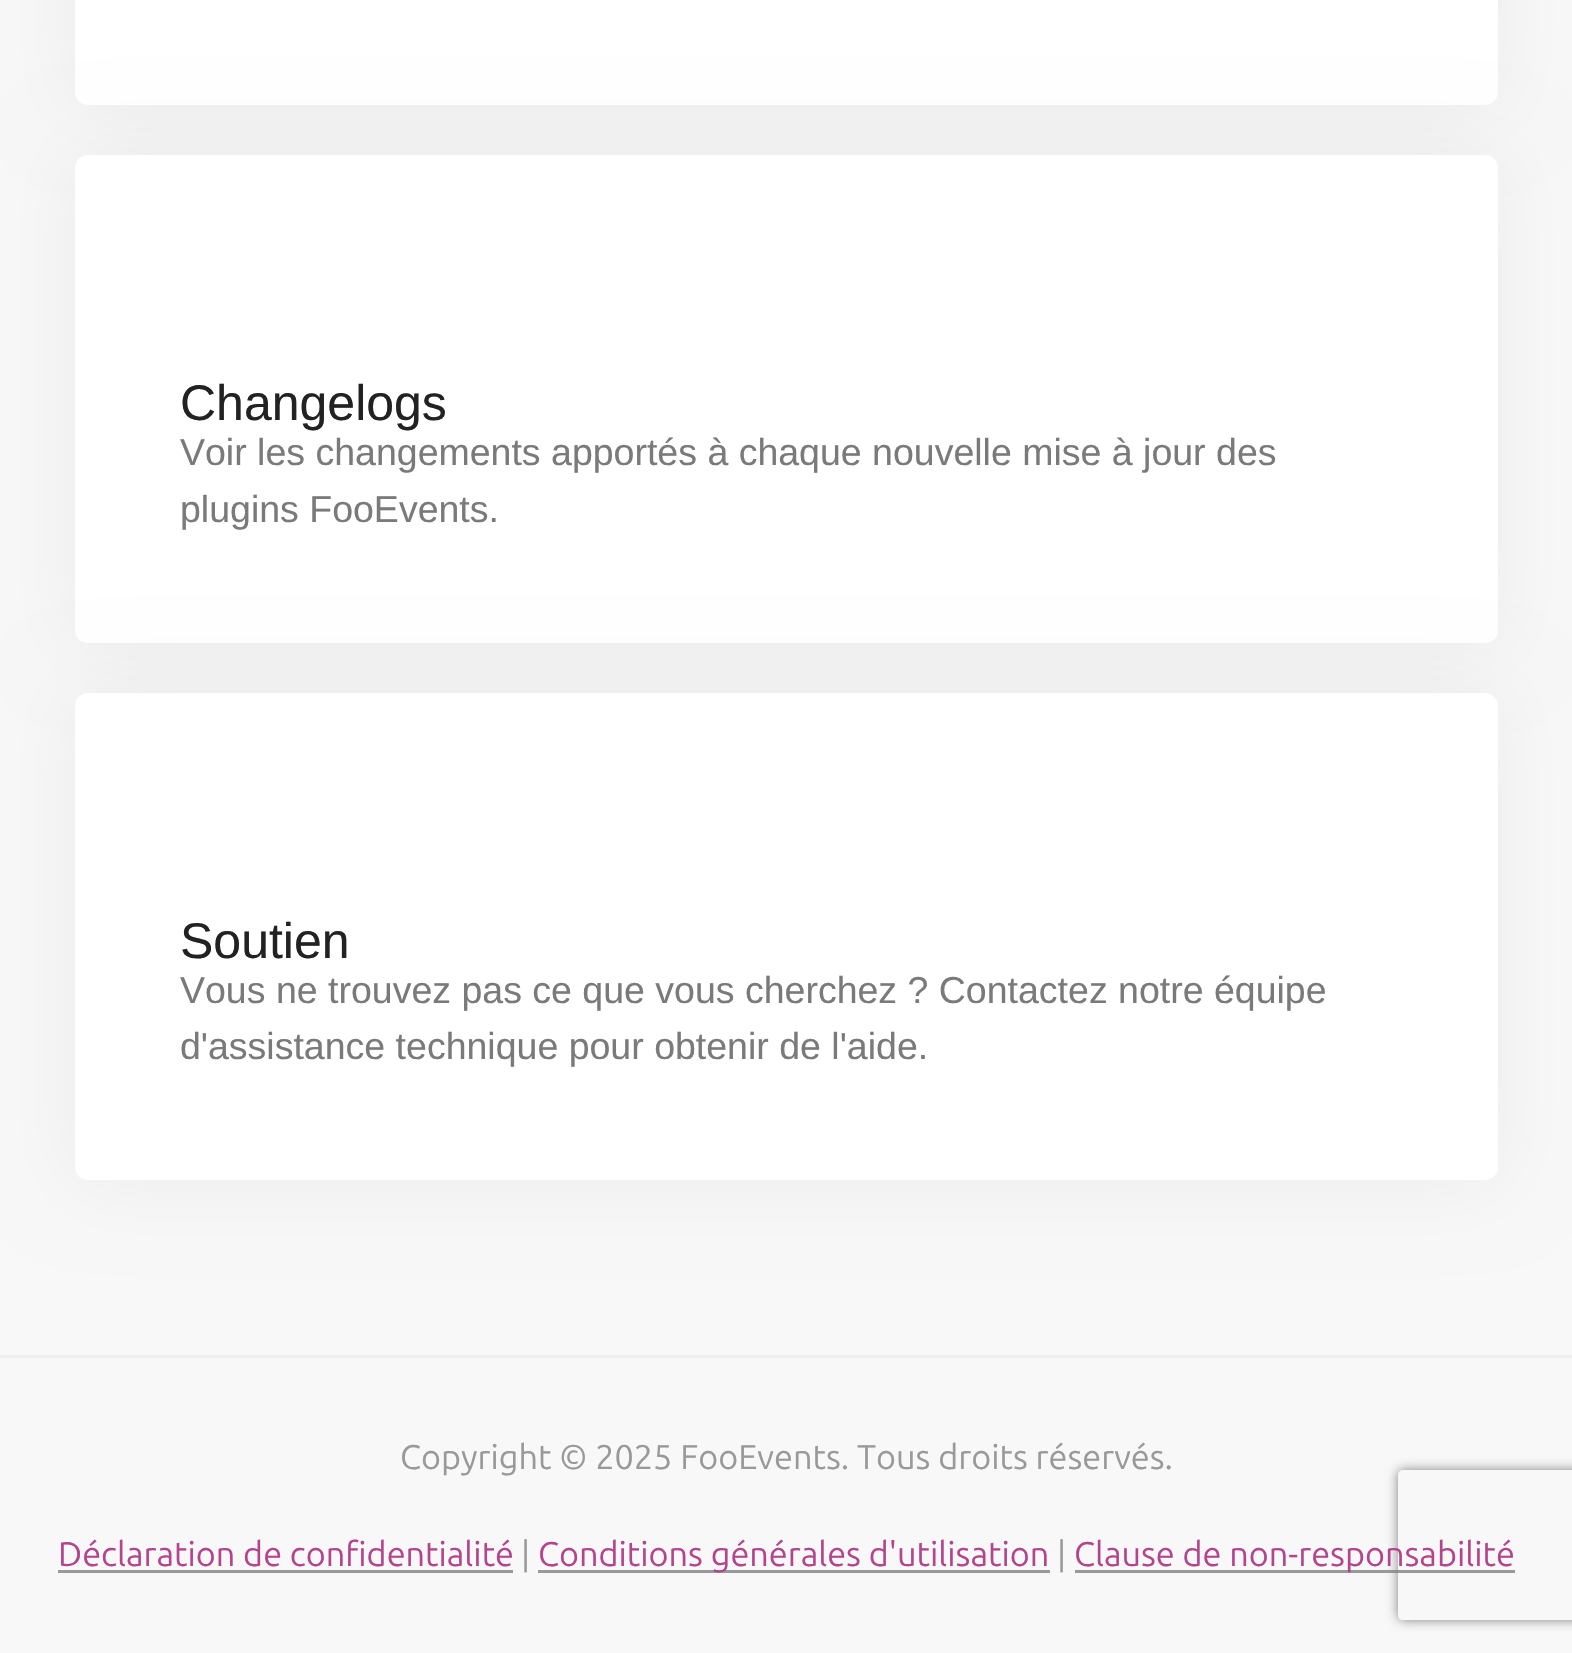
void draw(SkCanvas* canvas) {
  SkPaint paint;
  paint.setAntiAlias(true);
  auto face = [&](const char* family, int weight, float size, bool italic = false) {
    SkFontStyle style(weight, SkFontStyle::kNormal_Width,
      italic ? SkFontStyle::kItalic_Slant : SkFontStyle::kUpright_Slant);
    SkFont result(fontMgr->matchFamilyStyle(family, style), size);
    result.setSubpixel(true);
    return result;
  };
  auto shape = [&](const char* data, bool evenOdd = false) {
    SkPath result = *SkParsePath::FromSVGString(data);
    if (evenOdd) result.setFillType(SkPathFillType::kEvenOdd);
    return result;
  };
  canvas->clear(0xfff8f8f8);
  paint.setColor(0x0d000000);
  paint.setMaskFilter(SkMaskFilter::MakeBlur(kNormal_SkBlurStyle, 41));
  canvas->drawRoundRect(SkRect::MakeXYWH(75, -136, 1423, 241), 13, 13, paint);
  paint.setMaskFilter(nullptr);
  paint.setColor(0xffffffff);
  canvas->drawRoundRect(SkRect::MakeXYWH(77.5f, -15.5f, 1418, 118), 10.5f, 10.5f, paint);
  paint.setStroke(true);
  paint.setStrokeWidth(5);
  canvas->drawRoundRect(SkRect::MakeXYWH(77.5f, -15.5f, 1418, 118), 10.5f, 10.5f, paint);
  paint.setStroke(false);
  paint.setColor(0x0d000000);
  paint.setMaskFilter(SkMaskFilter::MakeBlur(kNormal_SkBlurStyle, 41));
  canvas->drawRoundRect(SkRect::MakeXYWH(75, 155, 1423, 488), 13, 13, paint);
  paint.setMaskFilter(nullptr);
  paint.setColor(0xffffffff);
  canvas->drawRoundRect(SkRect::MakeXYWH(77.5f, 157.5f, 1418, 483), 10.5f, 10.5f, paint);
  paint.setStroke(true);
  canvas->drawRoundRect(SkRect::MakeXYWH(77.5f, 157.5f, 1418, 483), 10.5f, 10.5f, paint);
  paint.setStroke(false);
  paint.setColor(0x0d000000);
  paint.setMaskFilter(SkMaskFilter::MakeBlur(kNormal_SkBlurStyle, 41));
  canvas->drawRoundRect(SkRect::MakeXYWH(75, 693, 1423, 487), 13, 13, paint);
  paint.setMaskFilter(nullptr);
  paint.setColor(0xffffffff);
  canvas->drawRoundRect(SkRect::MakeXYWH(77.5f, 695.5f, 1418, 482), 10.5f, 10.5f, paint);
  paint.setStroke(true);
  canvas->drawRoundRect(SkRect::MakeXYWH(77.5f, 695.5f, 1418, 482), 10.5f, 10.5f, paint);
  paint.setStroke(false);
  {
    const struct { float x, y, w, h; SkColor color; } items[] = {
      {0, 1355, 1572, 3, 0xffeeeeee},
      {58, 1570, 455, 3, 0xff999999},
      {538, 1570, 512, 3, 0xff999999},
      {1075, 1570, 440, 3, 0xff999999},
    };
    for (auto [x, y, w, h, color] : items) {
      paint.setColor(color);
      canvas->drawRect(SkRect::MakeXYWH(x, y, w, h), paint);
    }
  }
  canvas->save();
  canvas->clipPath(shape("M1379 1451H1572V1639H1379ZM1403 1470H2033C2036 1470 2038 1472 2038 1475V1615C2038 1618 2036 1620 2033 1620H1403C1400 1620 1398 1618 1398 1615V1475C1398 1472 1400 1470 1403 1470Z", true), true);
  paint.setColor(0xff808080);
  paint.setMaskFilter(SkMaskFilter::MakeBlur(kNormal_SkBlurStyle, 6));
  canvas->drawRoundRect(SkRect::MakeXYWH(1398, 1470, 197, 150), 5, 5, paint);
  paint.setMaskFilter(nullptr);
  canvas->restore();
  auto f0 = face("Liberation Sans", 400, 50);
  paint.setColor(0xff222222);
  canvas->drawString("Changelogs", 180, 420, f0, paint);
  auto f1 = face("Liberation Sans", 400, 37.5f);
  paint.setColor(0xff7a7a7a);
  canvas->drawString("Voir les changements apportés à chaque nouvelle mise à jour des", 180, 465, f1, paint);
  canvas->drawString("plugins FooEvents.", 180, 522, f1, paint);
  paint.setColor(0xff222222);
  canvas->drawString("Soutien", 180, 958, f0, paint);
  paint.setColor(0xff7a7a7a);
  canvas->drawString("Vous ne trouvez pas ce que vous cherchez ? Contactez notre équipe", 180, 1003, f1, paint);
  canvas->drawString("d'assistance technique pour obtenir de l'aide.", 180, 1059, f1, paint);
  auto f2 = face("Ubuntu", 400, 34.2f);
  paint.setColor(0xff999999);
  canvas->drawString("Copyright © 2025 FooEvents. Tous droits réservés.", 400, 1469, f2, paint);
  paint.setColor(0xffb4458d);
  canvas->drawString("Déclaration de confidentialité", 58, 1566, f2, paint);
  paint.setColor(0xff999999);
  canvas->drawString("|", 521, 1566, f2, paint);
  paint.setColor(0xffb4458d);
  canvas->drawString("Conditions générales d'utilisation", 538, 1566, f2, paint);
  paint.setColor(0xff999999);
  canvas->drawString("|", 1057, 1566, f2, paint);
  paint.setColor(0xffb4458d);
  canvas->drawString("Clause de non-responsabilité", 1074, 1566, f2, paint);
}
